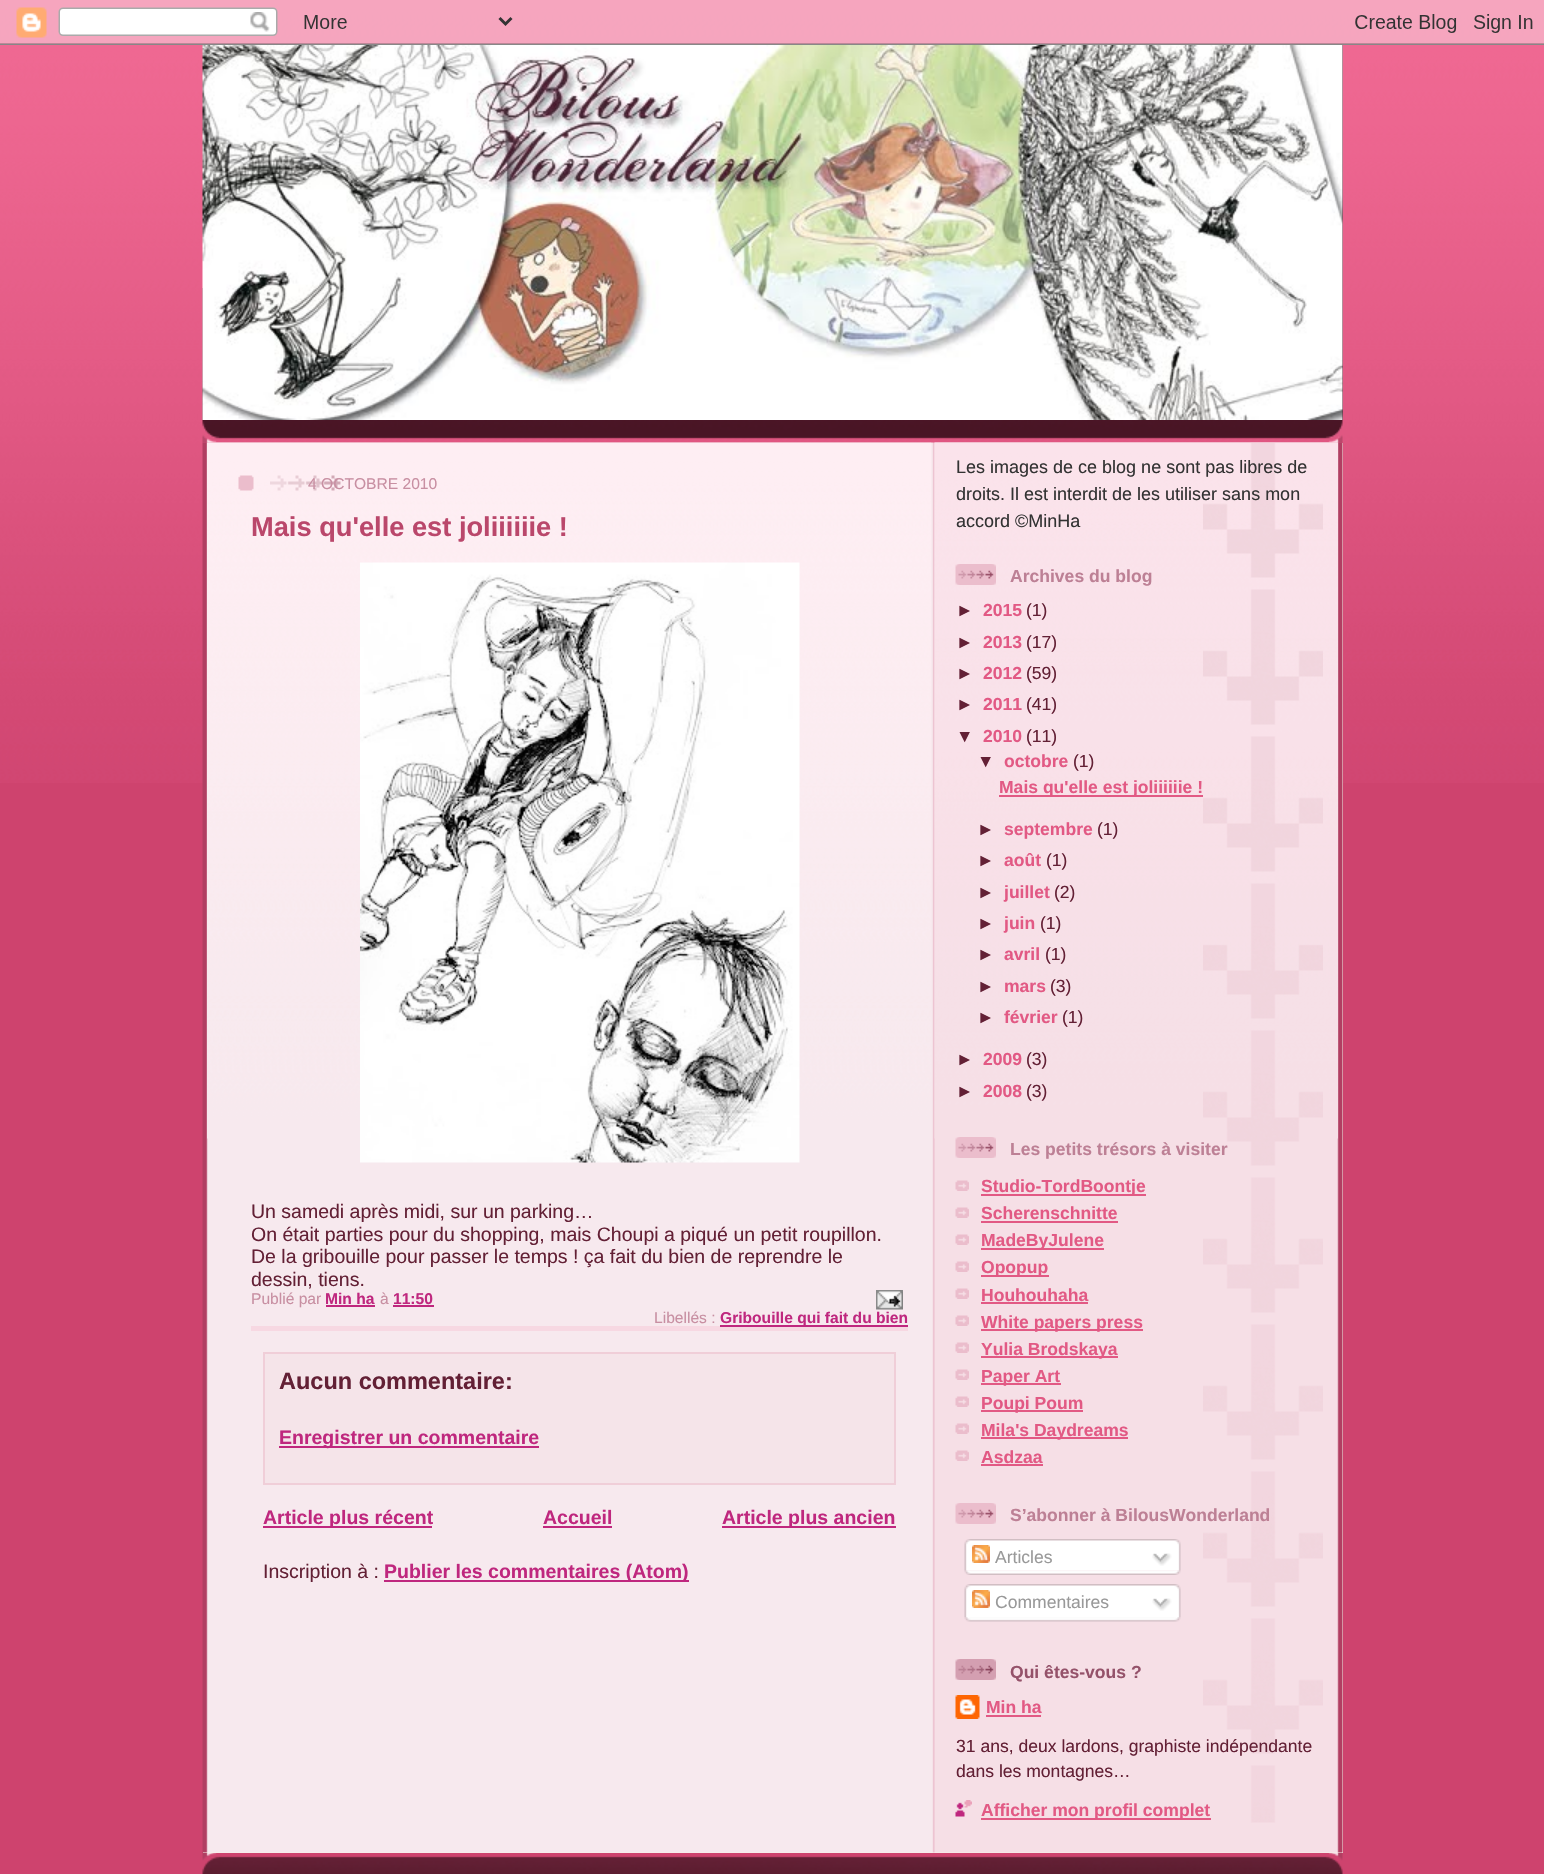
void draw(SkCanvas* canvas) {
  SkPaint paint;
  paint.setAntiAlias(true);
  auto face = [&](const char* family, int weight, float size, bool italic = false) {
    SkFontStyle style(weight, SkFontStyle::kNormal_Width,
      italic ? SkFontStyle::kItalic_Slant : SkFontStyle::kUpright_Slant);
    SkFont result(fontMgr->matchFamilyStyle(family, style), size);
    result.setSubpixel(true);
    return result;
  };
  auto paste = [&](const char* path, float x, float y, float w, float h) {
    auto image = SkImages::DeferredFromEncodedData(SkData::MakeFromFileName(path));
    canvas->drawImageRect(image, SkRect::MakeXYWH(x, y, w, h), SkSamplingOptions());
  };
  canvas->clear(0xffce436e);
  paste("img/1.png", 0, 0, 1544, 783);
  paste("img/2.png", 0, 0, 1544, 45);
  paste("img/3.png", 202, 420, 1141, 23);
  paint.setColor(0xff632035);
  canvas->drawRect(SkRect::MakeXYWH(1342, 45, 1, 375), paint);
  paste("img/4.png", 202, 288, 1141, 132);
  paste("img/5.png", 202, 45, 1141, 375);
  paste("img/26.png", 202, 1852, 1141, 22);
  paint.setColor(0xfff7f0e9);
  canvas->drawRect(SkRect::MakeXYWH(203, 443, 1140, 1410), paint);
  paste("img/6.png", 202, 442, 1141, 1411);
  paste("img/7.png", 207, 442, 725, 697);
  paste("img/8.png", 238, 475, 16, 16);
  paste("img/9.png", 270, 475, 71, 16);
  paint.setColor(0xfff7d8e2);
  canvas->drawRect(SkRect::MakeXYWH(251, 1326, 657, 5), paint);
  paste("img/10.png", 360, 562, 440, 601);
  paint.setColor(0xffbf277e);
  canvas->drawRect(SkRect::MakeXYWH(326, 1305, 49, 2), paint);
  canvas->drawRect(SkRect::MakeXYWH(393, 1305, 41, 2), paint);
  paste("img/11.png", 876, 1290, 27, 20);
  canvas->drawRect(SkRect::MakeXYWH(720, 1325, 188, 2), paint);
  paint.setColor(0xfff5e4e9);
  canvas->drawRect(SkRect::MakeXYWH(264, 1353, 631, 131), paint);
  paint.setStroke(true);
  paint.setStrokeWidth(2);
  paint.setColor(0xfff0ced8);
  canvas->drawRect(SkRect::MakeXYWH(264, 1353, 631, 131), paint);
  paint.setStroke(false);
  {
    const struct { float x, y, w, h; SkColor color; } items[] = {
      {279, 1446, 260, 2, 0xffbf277e},
      {263, 1526, 169, 2, 0xffbf277e},
      {543, 1526, 69, 2, 0xffbf277e},
      {722, 1526, 174, 2, 0xffbf277e},
      {384, 1580, 305, 2, 0xffbf277e},
    };
    for (auto [x, y, w, h, color] : items) {
      paint.setColor(color);
      canvas->drawRect(SkRect::MakeXYWH(x, y, w, h), paint);
    }
  }
  paste("img/12.png", 934, 442, 404, 697);
  paste("img/13.png", 1203, 443, 120, 1380);
  paste("img/14.png", 955, 564, 41, 21);
  paint.setColor(0xffe25984);
  canvas->drawRect(SkRect::MakeXYWH(999, 795, 204, 2), paint);
  paste("img/15.png", 955, 1137, 41, 21);
  paste("img/16.png", 955, 1180, 14, 11);
  canvas->drawRect(SkRect::MakeXYWH(981, 1194, 165, 2), paint);
  paste("img/16.png", 955, 1207, 14, 11);
  canvas->drawRect(SkRect::MakeXYWH(981, 1221, 137, 2), paint);
  paste("img/16.png", 955, 1234, 14, 11);
  canvas->drawRect(SkRect::MakeXYWH(981, 1248, 123, 2), paint);
  paste("img/16.png", 955, 1261, 14, 11);
  canvas->drawRect(SkRect::MakeXYWH(981, 1275, 68, 2), paint);
  paste("img/16.png", 955, 1288, 14, 11);
  canvas->drawRect(SkRect::MakeXYWH(981, 1302, 107, 2), paint);
  paste("img/16.png", 955, 1315, 14, 11);
  canvas->drawRect(SkRect::MakeXYWH(981, 1329, 162, 2), paint);
  paste("img/16.png", 955, 1342, 14, 11);
  canvas->drawRect(SkRect::MakeXYWH(981, 1356, 137, 2), paint);
  paste("img/16.png", 955, 1369, 14, 11);
  canvas->drawRect(SkRect::MakeXYWH(981, 1383, 80, 2), paint);
  paste("img/16.png", 955, 1396, 14, 11);
  canvas->drawRect(SkRect::MakeXYWH(981, 1410, 102, 2), paint);
  paste("img/16.png", 955, 1423, 14, 11);
  canvas->drawRect(SkRect::MakeXYWH(981, 1437, 147, 2), paint);
  paste("img/16.png", 955, 1450, 14, 11);
  canvas->drawRect(SkRect::MakeXYWH(981, 1464, 62, 2), paint);
  paste("img/15.png", 955, 1503, 41, 21);
  paste("img/17.png", 964, 1539, 217, 32);
  paste("img/18.png", 972, 1545, 18, 18);
  paste("img/19.png", 1152, 1553, 20, 13);
  paste("img/20.png", 964, 1570, 217, 5);
  paste("img/21.png", 964, 1584, 217, 33);
  paste("img/18.png", 972, 1590, 18, 18);
  paste("img/19.png", 1152, 1598, 20, 13);
  paste("img/22.png", 964, 1617, 217, 5);
  paste("img/23.png", 955, 1659, 41, 21);
  paste("img/24.png", 955, 1695, 25, 24);
  canvas->drawRect(SkRect::MakeXYWH(986, 1715, 55, 2), paint);
  paste("img/25.png", 955, 1800, 17, 17);
  canvas->drawRect(SkRect::MakeXYWH(981, 1818, 230, 2), paint);
  auto f0 = face("Liberation Sans", 400, 15.6f);
  paint.setColor(0xffc88fa2);
  canvas->drawString("4 OCTOBRE 2010", 308, 489, f0, paint);
  auto f1 = face("Liberation Sans", 700, 27.25f);
  paint.setColor(0xffba476b);
  canvas->drawString("Mais qu'elle est joliiiiiie !", 251, 536, f1, paint);
  auto f2 = face("Liberation Sans", 400, 19.5f);
  paint.setColor(0xff632035);
  {
    const struct { const char* s; float x, y; } items[] = {
      {"Un samedi après midi, sur un parking…", 251, 1218},
      {"On était parties pour du shopping, mais Choupi a piqué un petit roupillon.", 251, 1241},
      {"De la gribouille pour passer le temps ! ça fait du bien de reprendre le", 251, 1263},
      {"dessin, tiens.", 251, 1286},
    };
    for (auto [s, x, y] : items) {
      canvas->drawString(s, x, y, f2, paint);
    }
  }
  paint.setColor(0xffc88fa2);
  canvas->drawString("Publié par", 251, 1304, f0, paint);
  auto f3 = face("Liberation Sans", 700, 15.6f);
  paint.setColor(0xffbf277e);
  canvas->drawString("Min ha", 325, 1304, f3, paint);
  paint.setColor(0xffc88fa2);
  canvas->drawString("à", 380, 1304, f0, paint);
  paint.setColor(0xffbf277e);
  canvas->drawString("11:50", 393, 1304, f3, paint);
  paint.setColor(0xffc88fa2);
  canvas->drawString("Libellés :", 654, 1323, f0, paint);
  paint.setColor(0xffbf277e);
  canvas->drawString("Gribouille qui fait du bien", 720, 1323, f3, paint);
  auto f4 = face("Liberation Sans", 700, 23.5f);
  paint.setColor(0xff632035);
  canvas->drawString("Aucun commentaire:", 279, 1389, f4, paint);
  auto f5 = face("Liberation Sans", 700, 19.5f);
  paint.setColor(0xffbf277e);
  {
    const struct { const char* s; float x, y; } items[] = {
      {"Enregistrer un commentaire", 279, 1444},
      {"Article plus récent", 263, 1524},
      {"Accueil", 543, 1524},
      {"Article plus ancien", 722, 1524},
    };
    for (auto [s, x, y] : items) {
      canvas->drawString(s, x, y, f5, paint);
    }
  }
  paint.setColor(0xff632035);
  canvas->drawString("Inscription à :", 263, 1578, f2, paint);
  paint.setColor(0xffbf277e);
  canvas->drawString("Publier les commentaires (Atom)", 384, 1578, f5, paint);
  auto f6 = face("Liberation Sans", 400, 18);
  paint.setColor(0xff333333);
  {
    const struct { const char* s; float x, y; } items[] = {
      {"Les images de ce blog ne sont pas libres de", 956, 473},
      {"droits. Il est interdit de les utiliser sans mon", 956, 500},
      {"accord ©MinHa", 956, 527},
    };
    for (auto [s, x, y] : items) {
      canvas->drawString(s, x, y, f6, paint);
    }
  }
  auto f7 = face("Liberation Sans", 700, 17.55f);
  paint.setColor(0xffbd8095);
  canvas->drawString("Archives du blog", 1010, 582, f7, paint);
  paint.setColor(0xff632035);
  canvas->drawString("►", 956, 616, f7, paint);
  paint.setColor(0xffe25984);
  canvas->drawString("2015", 983, 616, f7, paint);
  auto f8 = face("Liberation Sans", 400, 17.55f);
  paint.setColor(0xff632035);
  canvas->drawString("(1)", 1026, 616, f8, paint);
  canvas->drawString("►", 956, 648, f7, paint);
  paint.setColor(0xffe25984);
  canvas->drawString("2013", 983, 648, f7, paint);
  paint.setColor(0xff632035);
  canvas->drawString("(17)", 1026, 648, f8, paint);
  canvas->drawString("►", 956, 679, f7, paint);
  paint.setColor(0xffe25984);
  canvas->drawString("2012", 983, 679, f7, paint);
  paint.setColor(0xff632035);
  canvas->drawString("(59)", 1026, 679, f8, paint);
  canvas->drawString("►", 956, 710, f7, paint);
  paint.setColor(0xffe25984);
  canvas->drawString("2011", 983, 710, f7, paint);
  paint.setColor(0xff632035);
  canvas->drawString("(41)", 1026, 710, f8, paint);
  canvas->drawString("▼", 956, 742, f7, paint);
  paint.setColor(0xffe25984);
  canvas->drawString("2010", 983, 742, f7, paint);
  paint.setColor(0xff632035);
  canvas->drawString("(11)", 1026, 742, f8, paint);
  canvas->drawString("▼", 977, 767, f7, paint);
  paint.setColor(0xffe25984);
  canvas->drawString("octobre", 1004, 767, f7, paint);
  paint.setColor(0xff632035);
  canvas->drawString("(1)", 1073, 767, f8, paint);
  paint.setColor(0xffe25984);
  canvas->drawString("Mais qu'elle est joliiiiiie !", 999, 793, f7, paint);
  paint.setColor(0xff632035);
  canvas->drawString("►", 977, 835, f7, paint);
  paint.setColor(0xffe25984);
  canvas->drawString("septembre", 1004, 835, f7, paint);
  paint.setColor(0xff632035);
  canvas->drawString("(1)", 1097, 835, f8, paint);
  canvas->drawString("►", 977, 866, f7, paint);
  paint.setColor(0xffe25984);
  canvas->drawString("août", 1004, 866, f7, paint);
  paint.setColor(0xff632035);
  canvas->drawString("(1)", 1046, 866, f8, paint);
  canvas->drawString("►", 977, 898, f7, paint);
  paint.setColor(0xffe25984);
  canvas->drawString("juillet", 1004, 898, f7, paint);
  paint.setColor(0xff632035);
  canvas->drawString("(2)", 1054, 898, f8, paint);
  canvas->drawString("►", 977, 929, f7, paint);
  paint.setColor(0xffe25984);
  canvas->drawString("juin", 1004, 929, f7, paint);
  paint.setColor(0xff632035);
  canvas->drawString("(1)", 1040, 929, f8, paint);
  canvas->drawString("►", 977, 960, f7, paint);
  paint.setColor(0xffe25984);
  canvas->drawString("avril", 1004, 960, f7, paint);
  paint.setColor(0xff632035);
  canvas->drawString("(1)", 1045, 960, f8, paint);
  canvas->drawString("►", 977, 992, f7, paint);
  paint.setColor(0xffe25984);
  canvas->drawString("mars", 1004, 992, f7, paint);
  paint.setColor(0xff632035);
  canvas->drawString("(3)", 1050, 992, f8, paint);
  canvas->drawString("►", 977, 1023, f7, paint);
  paint.setColor(0xffe25984);
  canvas->drawString("février", 1004, 1023, f7, paint);
  paint.setColor(0xff632035);
  canvas->drawString("(1)", 1062, 1023, f8, paint);
  canvas->drawString("►", 956, 1065, f7, paint);
  paint.setColor(0xffe25984);
  canvas->drawString("2009", 983, 1065, f7, paint);
  paint.setColor(0xff632035);
  canvas->drawString("(3)", 1026, 1065, f8, paint);
  canvas->drawString("►", 956, 1097, f7, paint);
  paint.setColor(0xffe25984);
  canvas->drawString("2008", 983, 1097, f7, paint);
  paint.setColor(0xff632035);
  canvas->drawString("(3)", 1026, 1097, f8, paint);
  paint.setColor(0xffbd8095);
  canvas->drawString("Les petits trésors à visiter", 1010, 1155, f7, paint);
  paint.setColor(0xffe25984);
  {
    const struct { const char* s; float x, y; } items[] = {
      {"Studio-TordBoontje", 981, 1192},
      {"Scherenschnitte", 981, 1219},
      {"MadeByJulene", 981, 1246},
      {"Opopup", 981, 1273},
      {"Houhouhaha", 981, 1301},
      {"White papers press", 981, 1328},
      {"Yulia Brodskaya", 981, 1355},
      {"Paper Art", 981, 1382},
      {"Poupi Poum", 981, 1409},
      {"Mila's Daydreams", 981, 1436},
      {"Asdzaa", 981, 1463},
    };
    for (auto [s, x, y] : items) {
      canvas->drawString(s, x, y, f7, paint);
    }
  }
  paint.setColor(0xffbd8095);
  canvas->drawString("S’abonner à BilousWonderland", 1010, 1521, f7, paint);
  paint.setColor(0xff999999);
  canvas->drawString("Articles", 995, 1563, f8, paint);
  canvas->drawString("Commentaires", 995, 1608, f8, paint);
  paint.setColor(0xff95526a);
  canvas->drawString("Qui êtes-vous ?", 1010, 1678, f7, paint);
  paint.setColor(0xffe25984);
  canvas->drawString("Min ha", 986, 1713, f7, paint);
  paint.setColor(0xff632035);
  canvas->drawString("31 ans, deux lardons, graphiste indépendante", 956, 1752, f8, paint);
  canvas->drawString("dans les montagnes…", 956, 1777, f8, paint);
  paint.setColor(0xffe25984);
  canvas->drawString("Afficher mon profil complet", 981, 1816, f7, paint);
}
